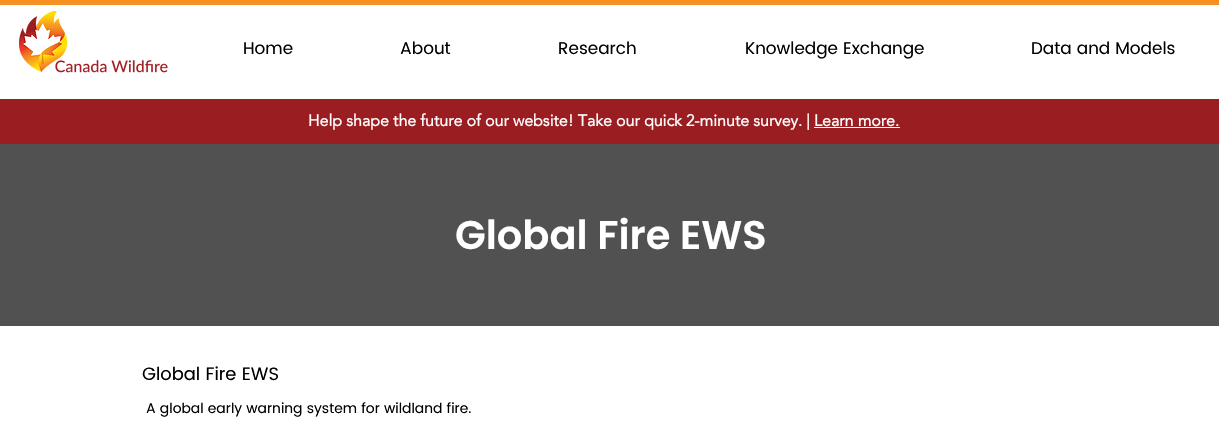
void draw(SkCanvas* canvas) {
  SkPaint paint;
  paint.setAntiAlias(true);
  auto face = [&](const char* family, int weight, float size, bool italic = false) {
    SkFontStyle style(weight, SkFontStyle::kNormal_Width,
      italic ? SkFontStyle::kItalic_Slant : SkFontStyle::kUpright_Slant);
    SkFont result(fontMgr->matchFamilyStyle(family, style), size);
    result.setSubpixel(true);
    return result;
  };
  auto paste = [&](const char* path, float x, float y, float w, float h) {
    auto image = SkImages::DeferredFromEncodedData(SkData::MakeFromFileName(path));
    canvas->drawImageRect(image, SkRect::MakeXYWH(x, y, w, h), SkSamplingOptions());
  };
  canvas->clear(0xffffffff);
  paint.setColor(0xfff69121);
  canvas->drawRect(SkRect::MakeXYWH(0, 0, 1219, 5), paint);
  paste("img/1.png", 19, 11, 149, 62);
  {
    const struct { float x, y, w, h; SkColor color; } items[] = {
      {0, 99, 1219, 45, 0xff9a1d21},
      {814, 127, 86, 1, 0xffffffff},
      {0, 144, 1219, 182, 0xff515151},
    };
    for (auto [x, y, w, h, color] : items) {
      paint.setColor(color);
      canvas->drawRect(SkRect::MakeXYWH(x, y, w, h), paint);
    }
  }
  auto f0 = face("Poppins", 400, 17);
  paint.setColor(0xff000000);
  {
    const struct { const char* s; float x, y; } items[] = {
      {"Home", 243, 54},
      {"About", 400, 54},
      {"Research", 558, 54},
      {"Knowledge Exchange", 745, 54},
      {"Data and Models", 1031, 54},
    };
    for (auto [s, x, y] : items) {
      canvas->drawString(s, x, y, f0, paint);
    }
  }
  auto f1 = face("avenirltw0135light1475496", 700, 16);
  paint.setColor(0xffffffff);
  canvas->drawString("Help shape the future of our website! Take our quick 2-minute survey. | Learn more.", 308, 126, f1, paint);
  auto f2 = face("Poppins", 600, 40);
  canvas->drawString("Global Fire EWS", 455, 249, f2, paint);
  auto f3 = face("Poppins", 400, 18);
  paint.setColor(0xff000000);
  canvas->drawString("Global Fire EWS", 142, 380, f3, paint);
  auto f4 = face("Poppins", 400, 14);
  canvas->drawString("A global early warning system for wildland fire.", 146, 413, f4, paint);
}
